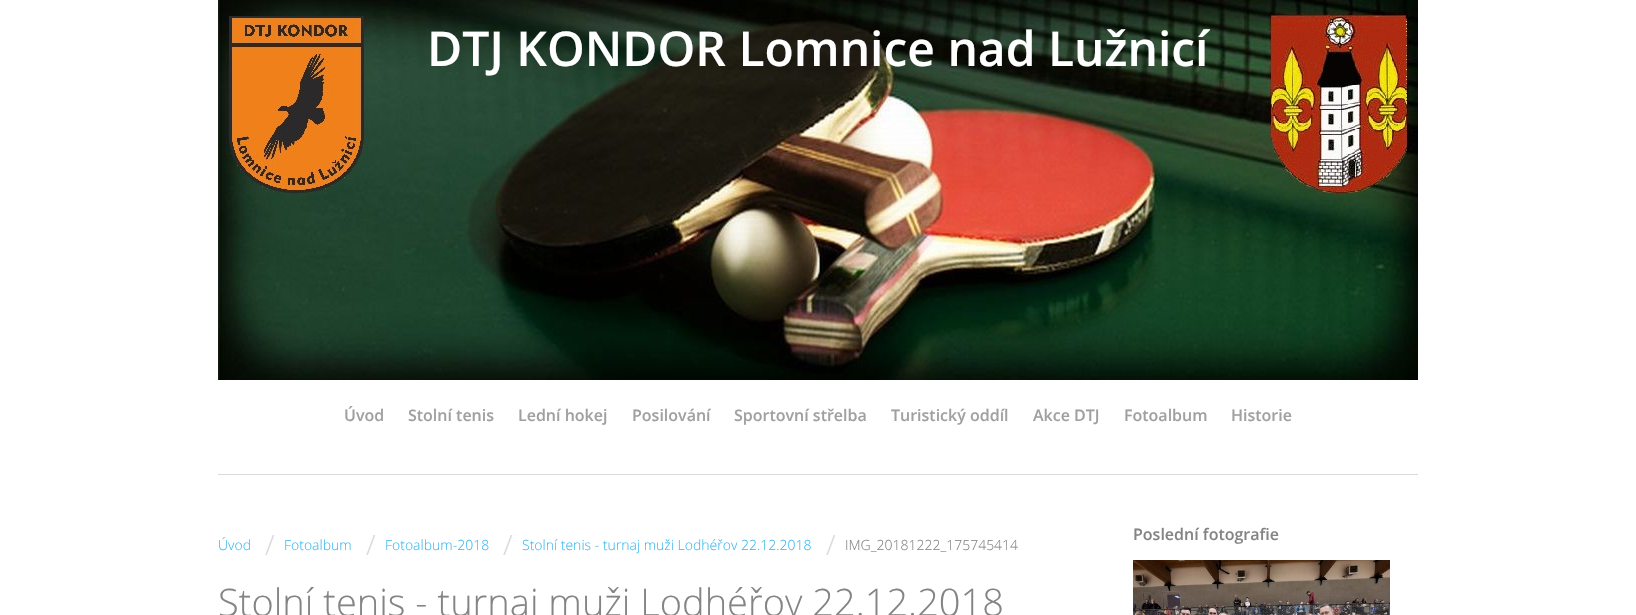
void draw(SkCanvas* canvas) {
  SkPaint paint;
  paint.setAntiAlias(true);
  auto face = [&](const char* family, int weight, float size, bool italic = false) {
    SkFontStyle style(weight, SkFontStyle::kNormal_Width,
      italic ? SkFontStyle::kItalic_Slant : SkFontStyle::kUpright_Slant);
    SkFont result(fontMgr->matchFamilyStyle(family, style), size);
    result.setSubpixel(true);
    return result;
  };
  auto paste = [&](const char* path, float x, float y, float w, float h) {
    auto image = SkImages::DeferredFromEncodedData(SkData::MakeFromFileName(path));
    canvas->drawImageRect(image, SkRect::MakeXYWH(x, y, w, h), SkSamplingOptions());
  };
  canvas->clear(0xffffffff);
  paste("img/1.png", 218, 0, 1200, 380);
  paint.setColor(0xffdbdbdb);
  canvas->drawRect(SkRect::MakeXYWH(218, 474, 1200, 1), paint);
  paste("img/2.png", 1133, 560, 257, 55);
  auto f0 = face("Open Sans", 600, 48);
  paint.setColor(0xffffffff);
  canvas->drawString("DTJ KONDOR Lomnice nad Lužnicí", 427, 66, f0, paint);
  auto f1 = face("Open Sans", 600, 16);
  paint.setColor(0xffa0a0a0);
  {
    const struct { const char* s; float x, y; } items[] = {
      {"Úvod", 344, 421},
      {"Stolní tenis", 408, 421},
      {"Lední hokej", 518, 421},
      {"Posilování", 632, 421},
      {"Sportovní střelba", 734, 421},
      {"Turistický oddíl", 891, 421},
      {"Akce DTJ", 1033, 421},
      {"Fotoalbum", 1124, 421},
      {"Historie", 1231, 421},
    };
    for (auto [s, x, y] : items) {
      canvas->drawString(s, x, y, f1, paint);
    }
  }
  auto f2 = face("Open Sans", 300, 14);
  paint.setColor(0xff3ab9f0);
  canvas->drawString("Úvod", 218, 550, f2, paint);
  auto f3 = face("Open Sans", 300, 28);
  paint.setColor(0xffdadada);
  canvas->drawString("/", 265, 555, f3, paint);
  paint.setColor(0xff3ab9f0);
  canvas->drawString("Fotoalbum", 284, 550, f2, paint);
  paint.setColor(0xffdadada);
  canvas->drawString("/", 366, 555, f3, paint);
  paint.setColor(0xff3ab9f0);
  canvas->drawString("Fotoalbum-2018", 385, 550, f2, paint);
  paint.setColor(0xffdadada);
  canvas->drawString("/", 503, 555, f3, paint);
  paint.setColor(0xff3ab9f0);
  canvas->drawString("Stolní tenis - turnaj muži Lodhéřov 22.12.2018", 522, 550, f2, paint);
  paint.setColor(0xffdadada);
  canvas->drawString("/", 826, 555, f3, paint);
  paint.setColor(0xff848484);
  canvas->drawString("IMG_20181222_175745414", 845, 550, f2, paint);
  auto f4 = face("Open Sans", 300, 38);
  canvas->drawString("Stolní tenis - turnaj muži Lodhéřov 22.12.2018", 218, 616, f4, paint);
  canvas->drawString("Poslední fotografie", 1133, 540, f1, paint);
}
